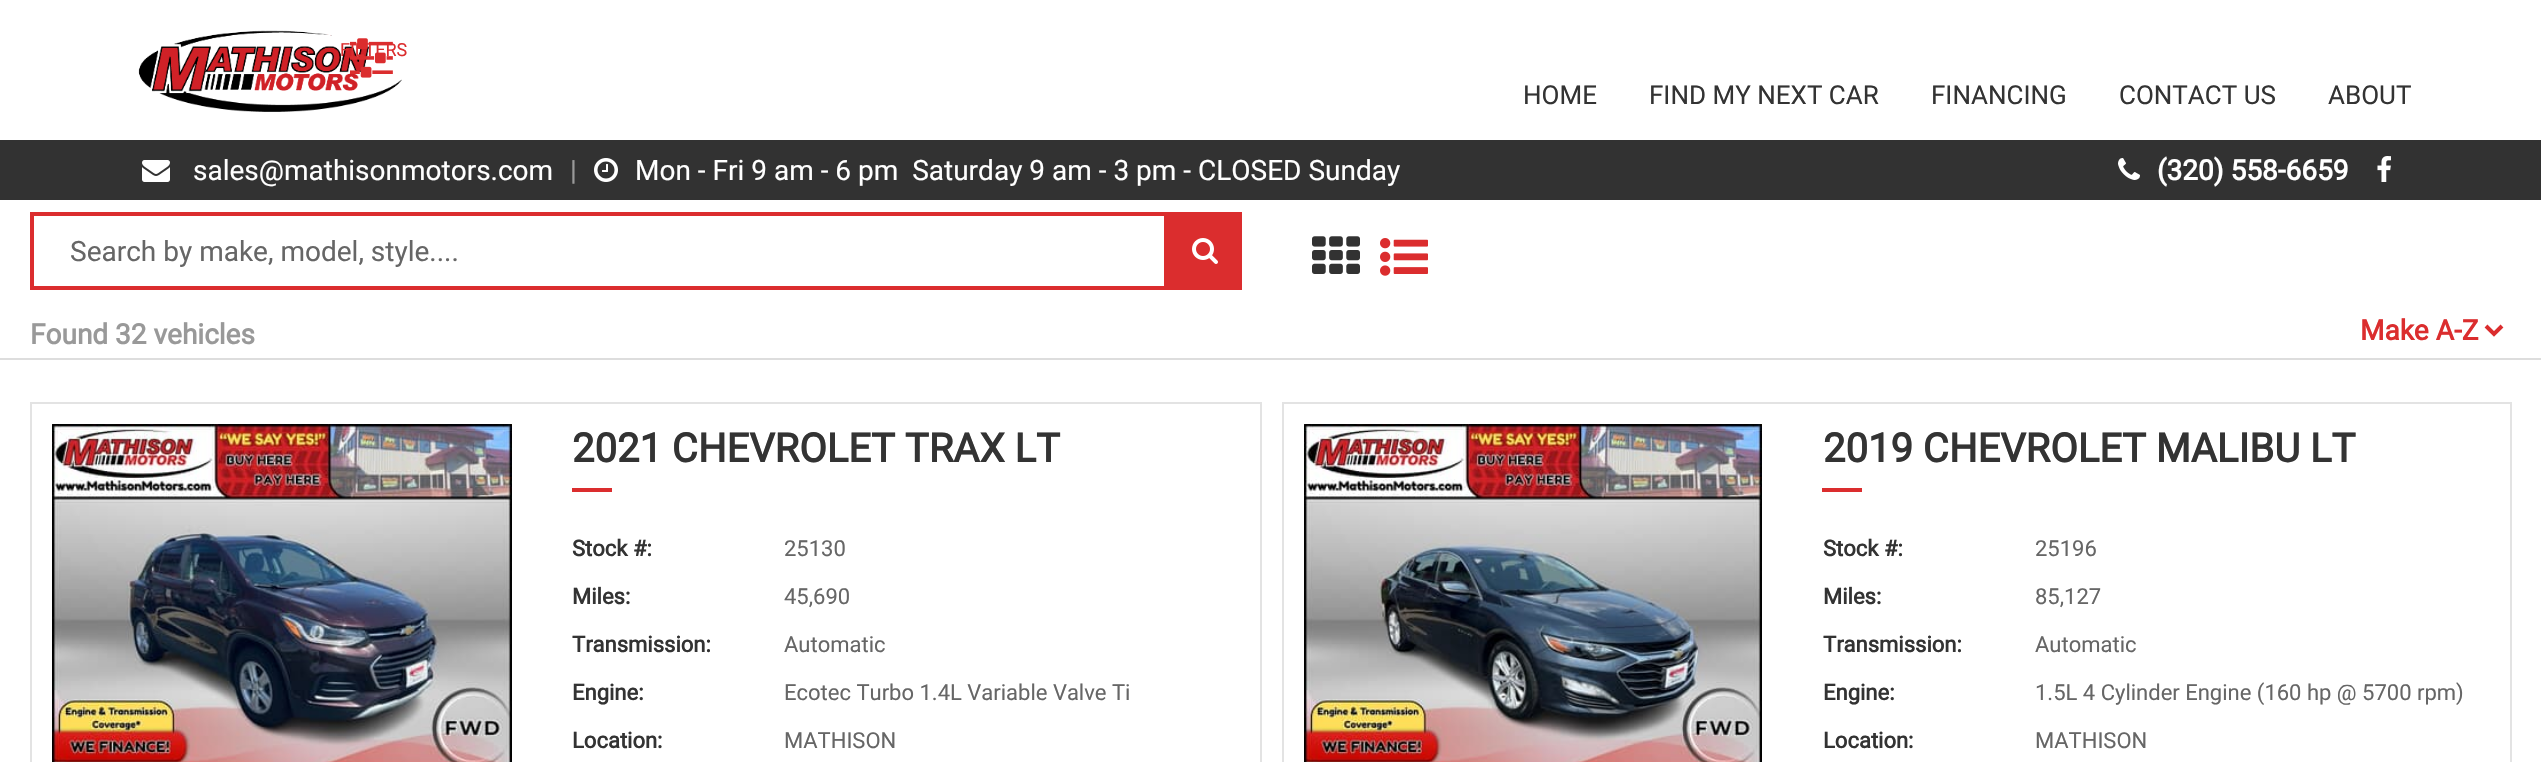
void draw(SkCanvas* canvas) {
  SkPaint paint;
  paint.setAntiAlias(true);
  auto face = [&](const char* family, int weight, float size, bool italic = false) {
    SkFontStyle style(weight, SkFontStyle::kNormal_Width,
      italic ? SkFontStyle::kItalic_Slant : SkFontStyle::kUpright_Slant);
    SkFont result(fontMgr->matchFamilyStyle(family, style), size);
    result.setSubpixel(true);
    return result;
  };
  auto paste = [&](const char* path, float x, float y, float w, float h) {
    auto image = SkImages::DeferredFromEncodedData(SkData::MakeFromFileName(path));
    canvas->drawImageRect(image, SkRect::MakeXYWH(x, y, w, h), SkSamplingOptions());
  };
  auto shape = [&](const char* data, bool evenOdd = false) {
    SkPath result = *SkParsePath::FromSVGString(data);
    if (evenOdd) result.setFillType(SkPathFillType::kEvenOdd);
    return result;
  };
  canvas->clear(0xffffffff);
  paste("img/1.png", 138, 30, 264, 82);
  paste("img/2.png", 350, 38, 43, 40);
  paint.setColor(0xff323232);
  canvas->drawRect(SkRect::MakeXYWH(0, 140, 2541, 60), paint);
  paste("img/3.png", 142, 160, 28, 22);
  paste("img/4.png", 594, 158, 24, 24);
  paste("img/5.png", 2118, 158, 22, 22);
  paste("img/6.png", 2377, 156, 14, 26);
  paint.setColor(0xffdddddd);
  canvas->drawRect(SkRect::MakeXYWH(0, 358, 2541, 2), paint);
  paint.setStroke(true);
  paint.setStrokeWidth(4);
  paint.setColor(0xffdb2d2e);
  canvas->drawRect(SkRect::MakeXYWH(32, 214, 1134, 74), paint);
  paint.setStroke(false);
  canvas->drawRect(SkRect::MakeXYWH(1168, 212, 74, 78), paint);
  paste("img/7.png", 1192, 238, 26, 26);
  paste("img/8.png", 1312, 236, 48, 38);
  paste("img/9.png", 1380, 238, 48, 38);
  paint.setStroke(true);
  canvas->drawPath(shape("M2486 326L2494 334L2502 326"), paint);
  paint.setStrokeWidth(2);
  paint.setColor(0xffe3e3e3);
  canvas->drawRect(SkRect::MakeXYWH(31, 403, 1230, 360), paint);
  paste("img/10.png", 52, 424, 460, 338);
  paint.setStroke(false);
  paint.setColor(0xffdb2d2e);
  canvas->drawRect(SkRect::MakeXYWH(572, 488, 40, 4), paint);
  paint.setStroke(true);
  paint.setColor(0xffe3e3e3);
  canvas->drawRect(SkRect::MakeXYWH(1283, 403, 1228, 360), paint);
  paste("img/11.png", 1304, 424, 458, 338);
  paint.setStroke(false);
  paint.setColor(0xffdb2d2e);
  canvas->drawRect(SkRect::MakeXYWH(1822, 488, 40, 4), paint);
  auto f0 = face("Roboto", 400, 18);
  canvas->drawString("FILTERS", 340, 56, f0, paint);
  auto f1 = face("Roboto", 400, 26);
  paint.setColor(0xff333333);
  {
    const struct { const char* s; float x, y; } items[] = {
      {"HOME", 1523, 104},
      {"FIND MY NEXT CAR", 1649, 104},
      {"FINANCING", 1931, 104},
      {"CONTACT US", 2119, 104},
      {"ABOUT", 2328, 104},
    };
    for (auto [s, x, y] : items) {
      canvas->drawString(s, x, y, f1, paint);
    }
  }
  auto f2 = face("Roboto", 400, 28);
  paint.setColor(0xffffffff);
  canvas->drawString("sales@mathisonmotors.com", 193, 180, f2, paint);
  paint.setColor(0xff999999);
  canvas->drawString("|", 570, 180, f2, paint);
  paint.setColor(0xffffffff);
  canvas->drawString("Mon - Fri 9 am - 6 pm  Saturday 9 am - 3 pm - CLOSED Sunday", 635, 180, f2, paint);
  auto f3 = face("Roboto", 700, 28);
  canvas->drawString("(320) 558-6659", 2157, 180, f3, paint);
  paint.setColor(0xff666666);
  canvas->drawString("Search by make, model, style....", 70, 261, f2, paint);
  paint.setColor(0xff999999);
  canvas->drawString("Found 32 vehicles", 30, 344, f3, paint);
  paint.setColor(0xffdb2d2e);
  canvas->drawString("Make A-Z", 2360, 340, f3, paint);
  auto f4 = face("Roboto", 700, 40);
  paint.setColor(0xff333333);
  canvas->drawString("2021 CHEVROLET TRAX LT", 572, 462, f4, paint);
  auto f5 = face("Roboto", 700, 22);
  canvas->drawString("Stock #:", 572, 556, f5, paint);
  auto f6 = face("Roboto", 400, 22);
  paint.setColor(0xff666666);
  canvas->drawString("25130", 784, 556, f6, paint);
  paint.setColor(0xff333333);
  canvas->drawString("Miles:", 572, 604, f5, paint);
  paint.setColor(0xff666666);
  canvas->drawString("45,690", 784, 604, f6, paint);
  paint.setColor(0xff333333);
  canvas->drawString("Transmission:", 572, 652, f5, paint);
  paint.setColor(0xff666666);
  canvas->drawString("Automatic", 784, 652, f6, paint);
  paint.setColor(0xff333333);
  canvas->drawString("Engine:", 572, 700, f5, paint);
  paint.setColor(0xff666666);
  canvas->drawString("Ecotec Turbo 1.4L Variable Valve Ti", 784, 700, f6, paint);
  paint.setColor(0xff333333);
  canvas->drawString("Location:", 572, 748, f5, paint);
  paint.setColor(0xff666666);
  canvas->drawString("MATHISON", 784, 748, f6, paint);
  paint.setColor(0xff333333);
  canvas->drawString("2019 CHEVROLET MALIBU LT", 1823, 462, f4, paint);
  canvas->drawString("Stock #:", 1823, 556, f5, paint);
  paint.setColor(0xff666666);
  canvas->drawString("25196", 2035, 556, f6, paint);
  paint.setColor(0xff333333);
  canvas->drawString("Miles:", 1823, 604, f5, paint);
  paint.setColor(0xff666666);
  canvas->drawString("85,127", 2035, 604, f6, paint);
  paint.setColor(0xff333333);
  canvas->drawString("Transmission:", 1823, 652, f5, paint);
  paint.setColor(0xff666666);
  canvas->drawString("Automatic", 2035, 652, f6, paint);
  paint.setColor(0xff333333);
  canvas->drawString("Engine:", 1823, 700, f5, paint);
  paint.setColor(0xff666666);
  canvas->drawString("1.5L 4 Cylinder Engine (160 hp @ 5700 rpm)", 2035, 700, f6, paint);
  paint.setColor(0xff333333);
  canvas->drawString("Location:", 1823, 748, f5, paint);
  paint.setColor(0xff666666);
  canvas->drawString("MATHISON", 2035, 748, f6, paint);
}
